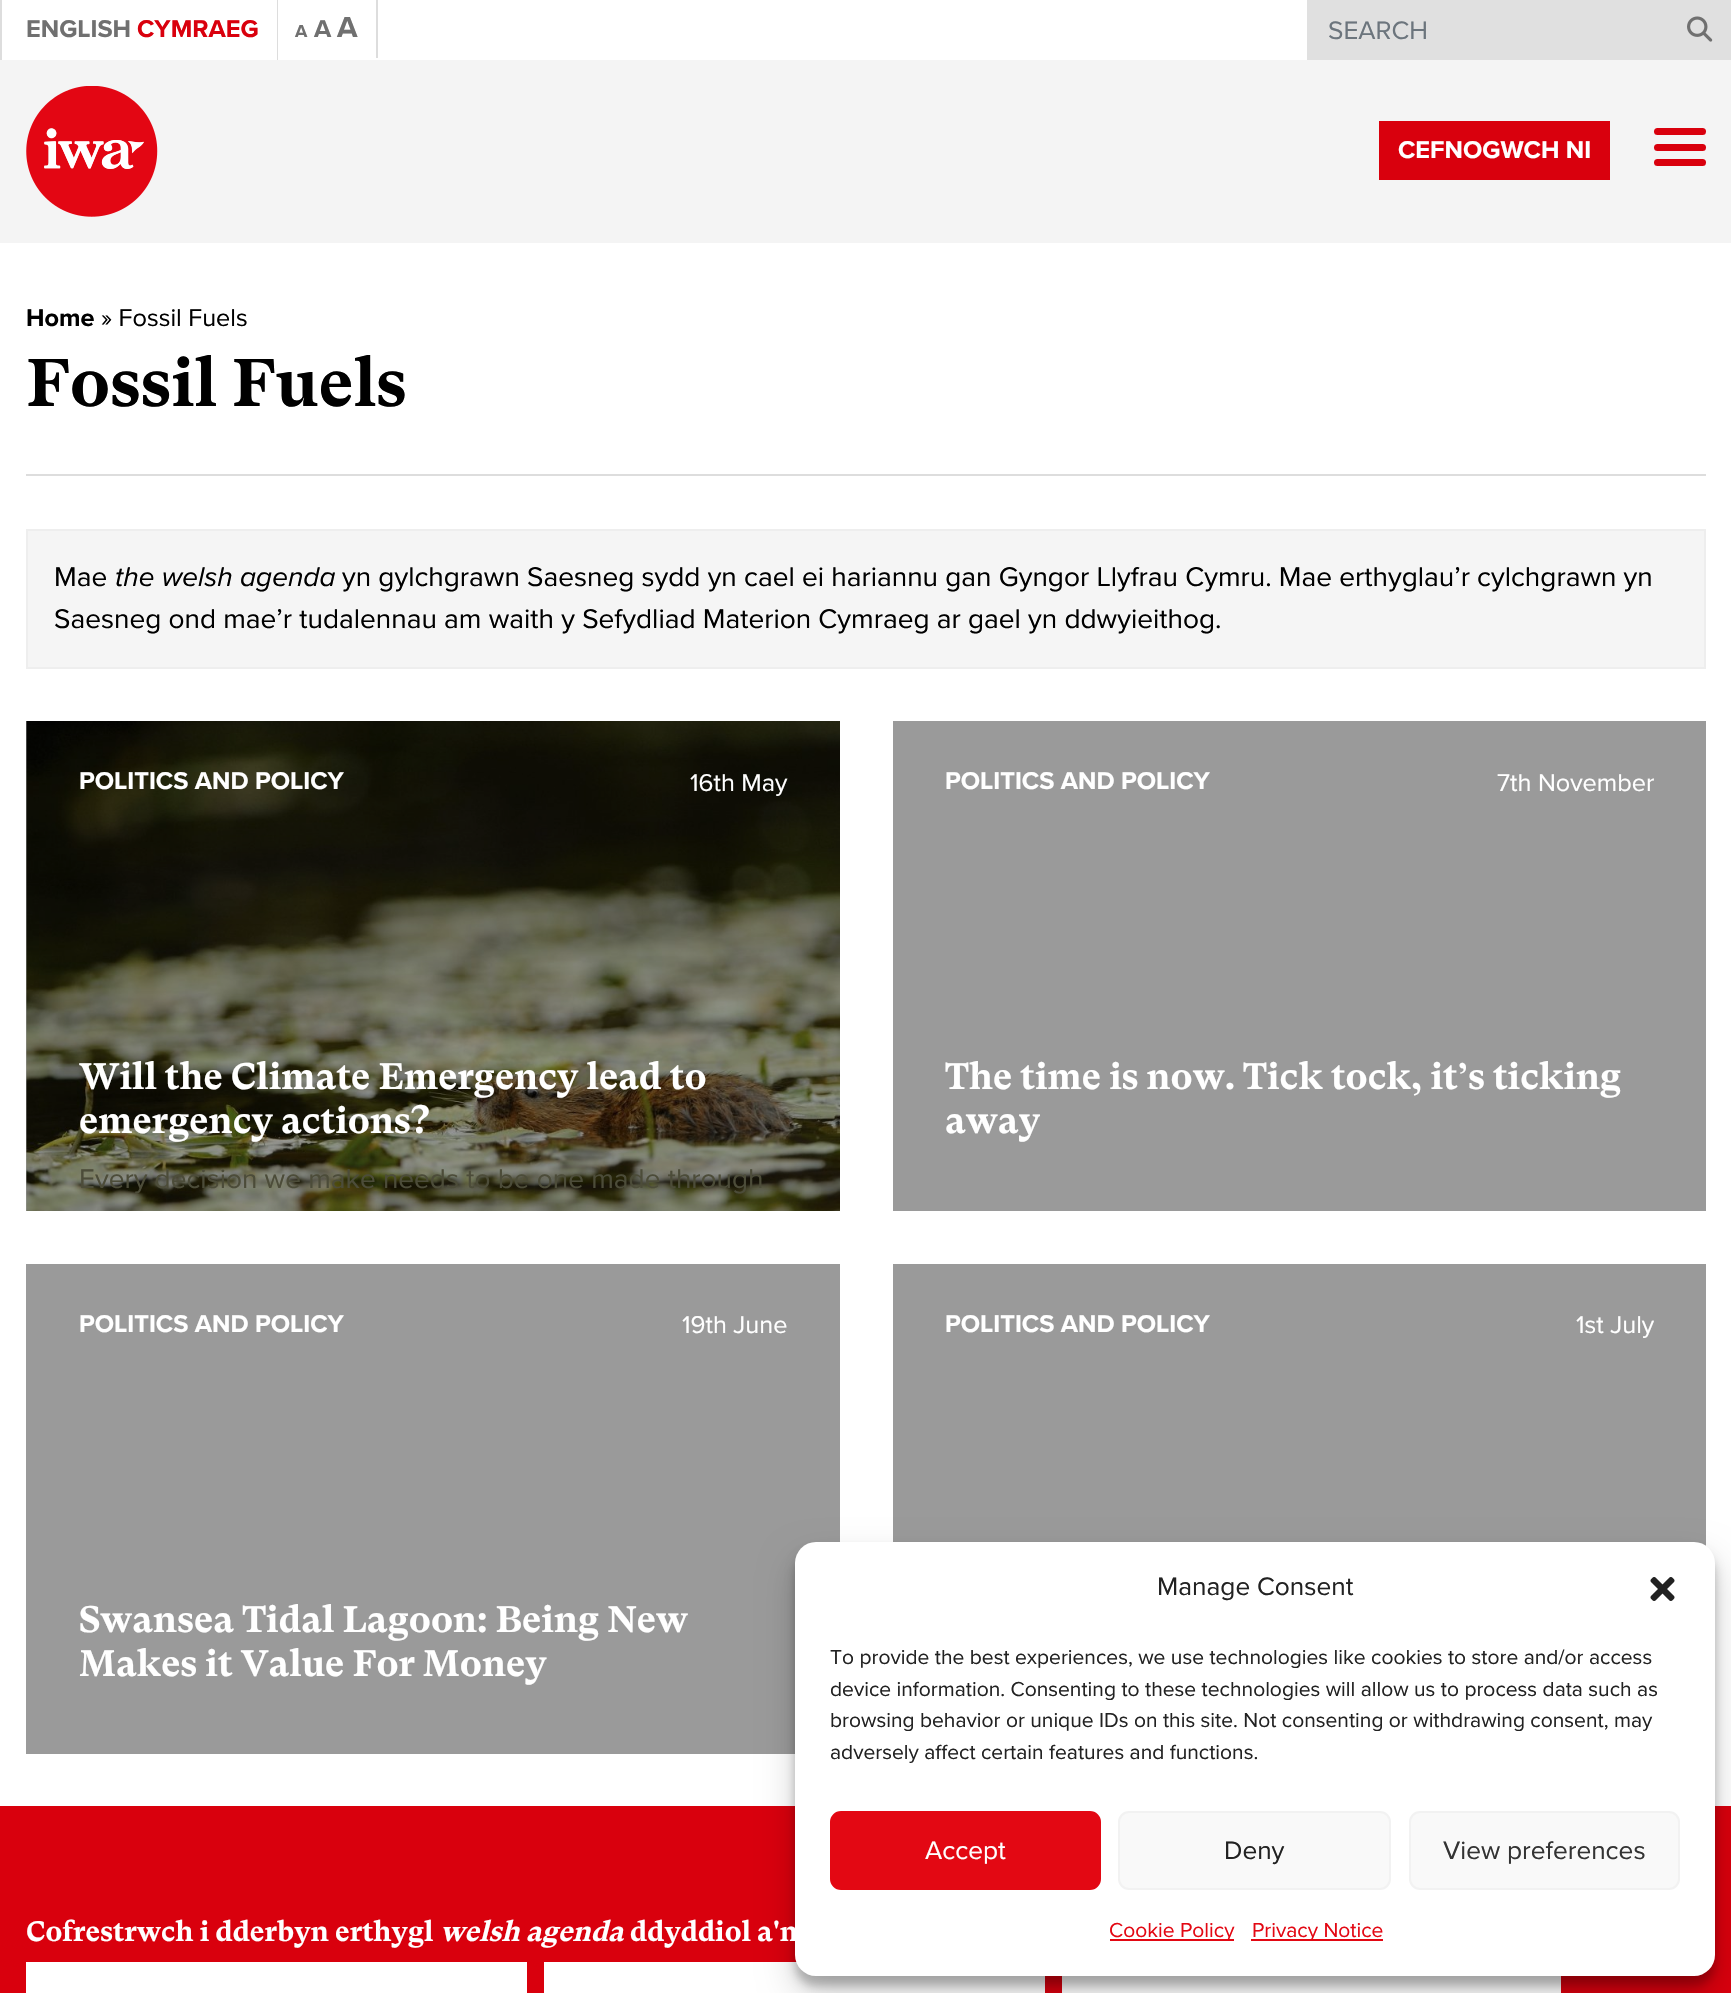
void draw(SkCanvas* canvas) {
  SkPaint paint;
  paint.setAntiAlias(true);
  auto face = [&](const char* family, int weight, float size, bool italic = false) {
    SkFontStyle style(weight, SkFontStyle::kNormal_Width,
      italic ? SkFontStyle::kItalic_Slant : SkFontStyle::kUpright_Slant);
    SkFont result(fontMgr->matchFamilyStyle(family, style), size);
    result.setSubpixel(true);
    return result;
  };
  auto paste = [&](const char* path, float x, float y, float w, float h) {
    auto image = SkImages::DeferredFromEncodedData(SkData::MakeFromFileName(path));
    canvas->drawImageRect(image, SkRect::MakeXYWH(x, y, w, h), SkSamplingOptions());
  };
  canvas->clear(0xffffffff);
  {
    const struct { float x, y, w, h; SkColor color; } items[] = {
      {26, 721, 1, 490, 0xff999999},
      {277, 0, 1, 60, 0xffdddddd},
      {0, 0, 2, 60, 0xffdddddd},
      {376, 0, 2, 58, 0xffdddddd},
      {1307, 0, 424, 60, 0xffe0e0e0},
    };
    for (auto [x, y, w, h, color] : items) {
      paint.setColor(color);
      canvas->drawRect(SkRect::MakeXYWH(x, y, w, h), paint);
    }
  }
  paste("img/1.png", 1687, 16, 26, 26);
  paint.setColor(0xfff4f4f4);
  canvas->drawRect(SkRect::MakeXYWH(0, 60, 1731, 183), paint);
  paste("img/2.png", 26, 86, 132, 131);
  paint.setColor(0xffd9000d);
  canvas->drawRect(SkRect::MakeXYWH(1379, 121, 231, 59), paint);
  canvas->drawRoundRect(SkRect::MakeXYWH(1654, 128, 52, 7), 3.5f, 3.5f, paint);
  canvas->drawRoundRect(SkRect::MakeXYWH(1654, 144, 52, 7), 3.5f, 3.5f, paint);
  canvas->drawRoundRect(SkRect::MakeXYWH(1654, 159, 52, 7), 3.5f, 3.5f, paint);
  paint.setColor(0xffdddddd);
  canvas->drawRect(SkRect::MakeXYWH(26, 474, 1680, 2), paint);
  paint.setColor(0xfff5f5f5);
  canvas->drawRect(SkRect::MakeXYWH(27, 530, 1678, 138), paint);
  paint.setStroke(true);
  paint.setStrokeWidth(2);
  paint.setColor(0xffeeeeee);
  canvas->drawRect(SkRect::MakeXYWH(27, 530, 1678, 138), paint);
  paste("img/3.png", 26, 721, 814, 490);
  paint.setStroke(false);
  {
    const struct { float x, y, w, h; SkColor color; } items[] = {
      {893, 721, 813, 490, 0xff9a9a9a},
      {26, 1264, 814, 490, 0xff9a9a9a},
      {893, 1264, 813, 282, 0xff9a9a9a},
      {0, 1806, 1731, 187, 0xffd9000d},
      {26, 1962, 501, 31, 0xffffffff},
      {544, 1962, 501, 31, 0xffffffff},
      {1062, 1976, 499, 17, 0xffffffff},
    };
    for (auto [x, y, w, h, color] : items) {
      paint.setColor(color);
      canvas->drawRect(SkRect::MakeXYWH(x, y, w, h), paint);
    }
  }
  paint.setColor(0x3b000000);
  paint.setMaskFilter(SkMaskFilter::MakeBlur(kNormal_SkBlurStyle, 5));
  canvas->drawRoundRect(SkRect::MakeXYWH(795, 1552, 920, 434), 21, 21, paint);
  paint.setMaskFilter(nullptr);
  paint.setColor(0x30000000);
  paint.setMaskFilter(SkMaskFilter::MakeBlur(kNormal_SkBlurStyle, 17.5f));
  canvas->drawRoundRect(SkRect::MakeXYWH(795, 1559, 920, 434), 21, 21, paint);
  paint.setMaskFilter(nullptr);
  paint.setColor(0xffffffff);
  canvas->drawRoundRect(SkRect::MakeXYWH(795, 1542, 920, 434), 21, 21, paint);
  paste("img/4.png", 1650, 1577, 25, 24);
  paint.setColor(0xffe30813);
  canvas->drawRoundRect(SkRect::MakeXYWH(831, 1812, 269, 77), 10, 10, paint);
  paint.setStroke(true);
  canvas->drawRoundRect(SkRect::MakeXYWH(831, 1812, 269, 77), 10, 10, paint);
  paint.setStroke(false);
  paint.setColor(0xfff9f9f9);
  canvas->drawRoundRect(SkRect::MakeXYWH(1119, 1812, 271, 77), 10, 10, paint);
  paint.setStroke(true);
  paint.setColor(0xfff2f2f2);
  canvas->drawRoundRect(SkRect::MakeXYWH(1119, 1812, 271, 77), 10, 10, paint);
  paint.setStroke(false);
  paint.setColor(0xfff9f9f9);
  canvas->drawRoundRect(SkRect::MakeXYWH(1410, 1812, 269, 77), 10, 10, paint);
  paint.setStroke(true);
  paint.setColor(0xfff2f2f2);
  canvas->drawRoundRect(SkRect::MakeXYWH(1410, 1812, 269, 77), 10, 10, paint);
  paint.setStroke(false);
  paint.setColor(0xffe30813);
  canvas->drawRect(SkRect::MakeXYWH(1110, 1939, 124, 2), paint);
  canvas->drawRect(SkRect::MakeXYWH(1251, 1939, 132, 2), paint);
  auto f0 = face("Proxima Nova", 700, 25.25f);
  paint.setColor(0xff707070);
  canvas->drawString("ENGLISH", 26, 37, f0, paint);
  paint.setColor(0xffd9000d);
  canvas->drawString("CYMRAEG", 137, 37, f0, paint);
  auto f1 = face("Proxima Nova", 700, 18);
  paint.setColor(0xff707070);
  canvas->drawString("A", 295, 37, f1, paint);
  canvas->drawString("A", 314, 37, f0, paint);
  auto f2 = face("Proxima Nova", 700, 30);
  canvas->drawString("A", 337, 37, f2, paint);
  auto f3 = face("Proxima Nova", 400, 26.25f);
  paint.setColor(0xff6c757d);
  canvas->drawString("SEARCH", 1328, 39, f3, paint);
  paint.setColor(0xffffffff);
  canvas->drawString("CEFNOGWCH NI", 1398, 158, f0, paint);
  paint.setColor(0xff000000);
  canvas->drawString("Home", 26, 326, f0, paint);
  auto f4 = face("Proxima Nova", 400, 25.25f);
  canvas->drawString("» Fossil Fuels", 101, 326, f4, paint);
  auto f5 = face("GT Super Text", 700, 67.25f);
  canvas->drawString("Fossil Fuels", 26, 406, f5, paint);
  auto f6 = face("Proxima Nova", 400, 28);
  canvas->drawString("Mae", 54, 586, f6, paint);
  auto f7 = face("Proxima Nova", 400, 28, true);
  canvas->drawString("the welsh agenda", 115, 586, f7, paint);
  canvas->drawString("yn gylchgrawn Saesneg sydd yn cael ei hariannu gan Gyngor Llyfrau Cymru. Mae erthyglau’r cylchgrawn yn", 342, 586, f6, paint);
  canvas->drawString("Saesneg ond mae’r tudalennau am waith y Sefydliad Materion Cymraeg ar gael yn ddwyieithog.", 54, 628, f6, paint);
  paint.setColor(0xffffffff);
  canvas->drawString("POLITICS AND POLICY", 79, 789, f0, paint);
  canvas->drawString("16th May", 690, 791, f4, paint);
  auto f8 = face("GT Super Text", 700, 36.75f);
  canvas->drawString("Will the Climate Emergency lead to", 79, 1089, f8, paint);
  canvas->drawString("emergency actions?", 79, 1133, f8, paint);
  paint.setColor(0xff4c4c39);
  canvas->drawString("Every decision we make needs to be one made through", 79, 1188, f6, paint);
  paint.setColor(0xffffffff);
  canvas->drawString("POLITICS AND POLICY", 945, 789, f0, paint);
  canvas->drawString("7th November", 1497, 791, f4, paint);
  canvas->drawString("The time is now. Tick tock, it’s ticking", 945, 1089, f8, paint);
  canvas->drawString("away", 945, 1133, f8, paint);
  canvas->drawString("POLITICS AND POLICY", 79, 1332, f0, paint);
  canvas->drawString("19th June", 682, 1333, f4, paint);
  canvas->drawString("Swansea Tidal Lagoon: Being New", 79, 1632, f8, paint);
  canvas->drawString("Makes it Value For Money", 79, 1676, f8, paint);
  canvas->drawString("POLITICS AND POLICY", 945, 1332, f0, paint);
  canvas->drawString("1st July", 1576, 1333, f4, paint);
  auto f9 = face("GT Super Text", 700, 28);
  canvas->drawString("Cofrestrwch i dderbyn erthygl", 26, 1941, f9, paint);
  auto f10 = face("GT Super Text", 700, 28, true);
  canvas->drawString("welsh agenda", 440, 1941, f10, paint);
  canvas->drawString("ddyddiol a'n", 630, 1941, f9, paint);
  paint.setColor(0xff222222);
  canvas->drawString("Manage Consent", 1157, 1595, f3, paint);
  auto f11 = face("Proxima Nova", 400, 21);
  {
    const struct { const char* s; float x, y; } items[] = {
      {"To provide the best experiences, we use technologies like cookies to store and/or access", 830, 1664},
      {"device information. Consenting to these technologies will allow us to process data such as", 830, 1696},
      {"browsing behavior or unique IDs on this site. Not consenting or withdrawing consent, may", 830, 1727},
      {"adversely affect certain features and functions.", 830, 1759},
    };
    for (auto [s, x, y] : items) {
      canvas->drawString(s, x, y, f11, paint);
    }
  }
  paint.setColor(0xffffffff);
  canvas->drawString("Accept", 925, 1859, f3, paint);
  paint.setColor(0xff222222);
  canvas->drawString("Deny", 1224, 1859, f3, paint);
  paint.setColor(0xff333333);
  canvas->drawString("View preferences", 1443, 1859, f3, paint);
  paint.setColor(0xffe30813);
  canvas->drawString("Cookie Policy", 1109, 1937, f11, paint);
  canvas->drawString("Privacy Notice", 1252, 1937, f11, paint);
}
